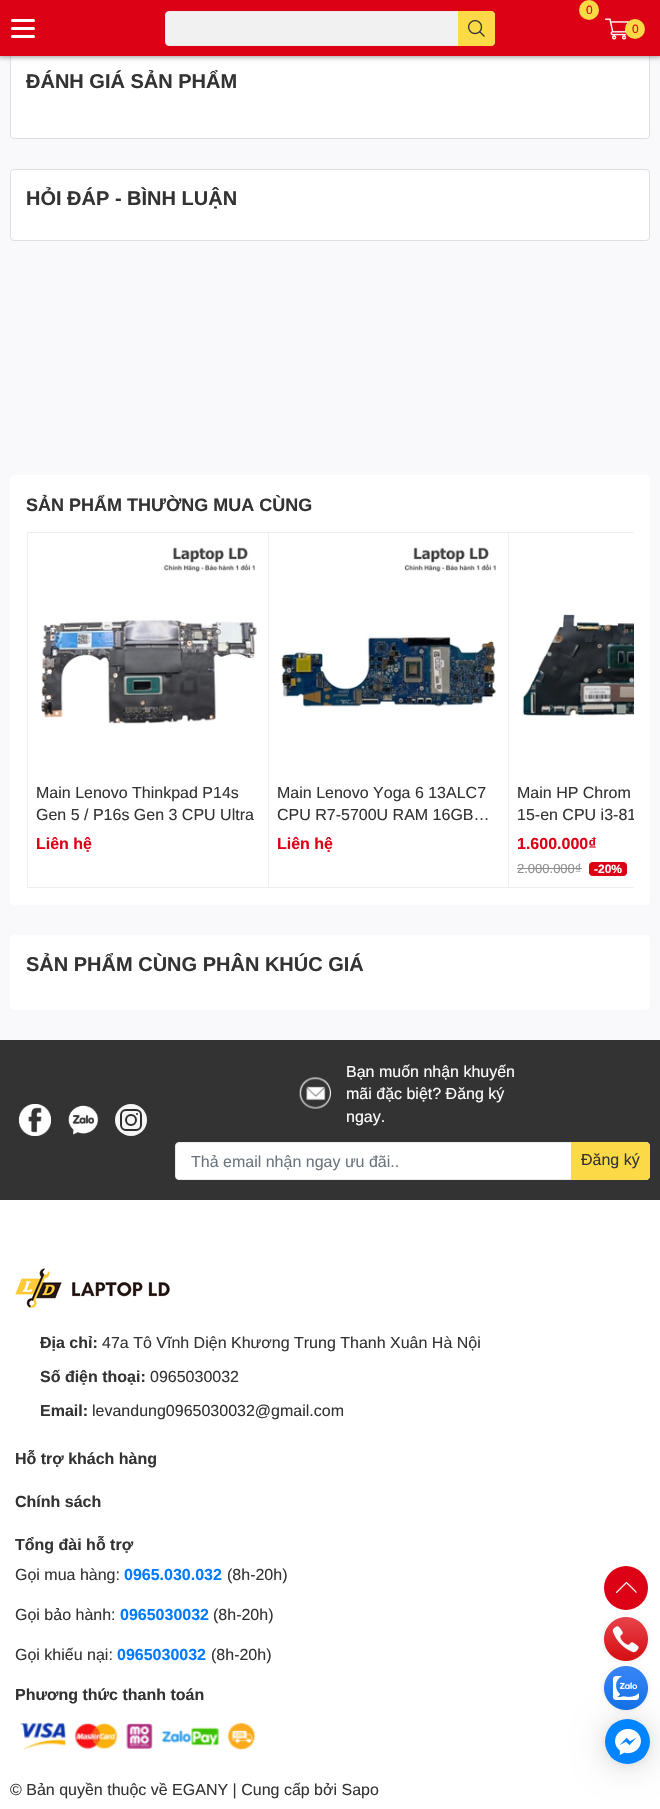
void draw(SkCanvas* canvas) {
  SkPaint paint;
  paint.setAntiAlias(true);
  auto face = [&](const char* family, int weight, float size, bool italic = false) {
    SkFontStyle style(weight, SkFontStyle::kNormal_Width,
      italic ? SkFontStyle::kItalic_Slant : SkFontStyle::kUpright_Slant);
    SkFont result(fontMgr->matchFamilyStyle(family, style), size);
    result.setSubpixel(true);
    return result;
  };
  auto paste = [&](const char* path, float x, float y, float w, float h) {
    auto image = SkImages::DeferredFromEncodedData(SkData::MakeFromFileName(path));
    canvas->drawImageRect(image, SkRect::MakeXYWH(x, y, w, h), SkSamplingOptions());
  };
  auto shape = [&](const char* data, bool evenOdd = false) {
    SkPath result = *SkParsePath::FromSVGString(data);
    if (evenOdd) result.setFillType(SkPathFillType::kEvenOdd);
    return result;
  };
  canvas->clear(0xfff9f9fb);
  paint.setColor(0xffffffff);
  canvas->drawRoundRect(SkRect::MakeXYWH(10.5f, 52.5f, 639, 86), 3.5f, 3.5f, paint);
  paint.setStroke(true);
  paint.setStrokeWidth(1);
  paint.setColor(0xffdfdfdf);
  canvas->drawRoundRect(SkRect::MakeXYWH(10.5f, 52.5f, 639, 86), 3.5f, 3.5f, paint);
  paint.setStroke(false);
  paint.setColor(0x66000000);
  paint.setMaskFilter(SkMaskFilter::MakeBlur(kNormal_SkBlurStyle, 2.5f));
  canvas->drawRect(SkRect::MakeXYWH(-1, -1, 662, 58), paint);
  paint.setMaskFilter(nullptr);
  paint.setColor(0xffdd0115);
  canvas->drawRect(SkRect::MakeXYWH(0, 0, 660, 56), paint);
  paint.setColor(0xffffffff);
  canvas->drawRoundRect(SkRect::MakeXYWH(11, 19, 24, 3), 1.5f, 1.5f, paint);
  canvas->drawRoundRect(SkRect::MakeXYWH(11, 27, 24, 3), 1.5f, 1.5f, paint);
  canvas->drawRoundRect(SkRect::MakeXYWH(11, 35, 24, 3), 1.5f, 1.5f, paint);
  paint.setColor(0xfff1f1f1);
  canvas->drawRoundRect(SkRect::MakeXYWH(165.5f, 11.5f, 329, 34), 3.5f, 3.5f, paint);
  paint.setStroke(true);
  paint.setColor(0xffebebeb);
  canvas->drawRoundRect(SkRect::MakeXYWH(165.5f, 11.5f, 329, 34), 3.5f, 3.5f, paint);
  paint.setStroke(false);
  paint.setColor(0xfffbd947);
  canvas->drawPath(shape("M458 11H491C493 11 495 13 495 15V42C495 44 493 46 491 46H458Z"), paint);
  paste("img/1.png", 468, 20, 17, 17);
  canvas->drawCircle(589, 10, 10, paint);
  paste("img/2.png", 605, 18, 24, 22);
  canvas->drawCircle(635, 29, 10, paint);
  paint.setColor(0xffffffff);
  canvas->drawRoundRect(SkRect::MakeXYWH(10.5f, 169.5f, 639, 71), 3.5f, 3.5f, paint);
  paint.setStroke(true);
  paint.setColor(0xffdfdfdf);
  canvas->drawRoundRect(SkRect::MakeXYWH(10.5f, 169.5f, 639, 71), 3.5f, 3.5f, paint);
  paint.setStroke(false);
  paint.setColor(0xffffffff);
  canvas->drawRoundRect(SkRect::MakeXYWH(10, 475, 640, 430), 4, 4, paint);
  paint.setStroke(true);
  paint.setColor(0xffeeeeee);
  canvas->drawRect(SkRect::MakeXYWH(27.5f, 532.5f, 241, 355), paint);
  paste("img/3.png", 41, 547, 216, 177);
  canvas->drawRect(SkRect::MakeXYWH(268.5f, 532.5f, 240, 355), paint);
  paste("img/4.png", 281, 547, 215, 161);
  canvas->save();
  canvas->clipRect(SkRect::MakeXYWH(26, 530, 608, 359));
  canvas->drawRect(SkRect::MakeXYWH(508.5f, 532.5f, 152, 355), paint);
  canvas->restore();
  paste("img/5.png", 522, 614, 112, 102);
  paint.setStroke(false);
  paint.setColor(0xff8f8f8f);
  canvas->drawRect(SkRect::MakeXYWH(517, 868, 65, 1), paint);
  paint.setColor(0xffdd0115);
  canvas->drawRoundRect(SkRect::MakeXYWH(589, 862, 38, 14), 4, 4, paint);
  paint.setColor(0xffffffff);
  canvas->drawRoundRect(SkRect::MakeXYWH(10, 935, 640, 75), 4, 4, paint);
  paint.setColor(0xff333333);
  canvas->drawRect(SkRect::MakeXYWH(0, 1040, 660, 160), paint);
  paste("img/6.png", 19, 1104, 32, 32);
  paste("img/7.png", 68, 1105, 31, 30);
  paint.setColor(0xfff5f5f5);
  canvas->drawCircle(131, 1120, 16, paint);
  paint.setStroke(true);
  paint.setStrokeWidth(2);
  paint.setColor(0xff2d2d2d);
  canvas->drawCircle(131, 1120, 5, paint);
  canvas->drawRoundRect(SkRect::MakeXYWH(121, 1110, 20, 20), 5, 5, paint);
  paint.setStroke(false);
  canvas->drawCircle(137, 1114, 1, paint);
  paste("img/8.png", 299, 1077, 32, 32);
  paint.setColor(0xffffffff);
  canvas->drawRoundRect(SkRect::MakeXYWH(175.5f, 1142.5f, 474, 37), 3.5f, 3.5f, paint);
  paint.setStroke(true);
  paint.setStrokeWidth(1);
  paint.setColor(0xffebebeb);
  canvas->drawRoundRect(SkRect::MakeXYWH(175.5f, 1142.5f, 474, 37), 3.5f, 3.5f, paint);
  paint.setStroke(false);
  paint.setColor(0xfffbd947);
  canvas->drawPath(shape("M571 1142H646C648 1142 650 1144 650 1146V1176C650 1178 648 1180 646 1180H571Z"), paint);
  paint.setColor(0xffffffff);
  canvas->drawRect(SkRect::MakeXYWH(0, 1200, 660, 609), paint);
  paste("img/9.png", 15, 1268, 155, 40);
  paste("img/10.png", 20, 1722, 236, 28);
  paint.setColor(0xffdd0115);
  canvas->drawCircle(626, 1588, 22, paint);
  paste("img/11.png", 616, 1582, 21, 11);
  canvas->save();
  canvas->clipPath(shape("M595 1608H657V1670H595ZM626 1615C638 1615 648 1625 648 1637C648 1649 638 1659 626 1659C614 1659 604 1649 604 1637C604 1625 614 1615 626 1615Z", true), true);
  paint.setColor(0x1c000000);
  paint.setMaskFilter(SkMaskFilter::MakeBlur(kNormal_SkBlurStyle, 2.5f));
  canvas->drawRoundRect(SkRect::MakeXYWH(604, 1617, 44, 44), 22, 22, paint);
  paint.setMaskFilter(nullptr);
  canvas->restore();
  paste("img/12.png", 604, 1617, 44, 44);
  canvas->save();
  canvas->clipPath(shape("M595 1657H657V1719H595ZM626 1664C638 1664 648 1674 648 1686C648 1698 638 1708 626 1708C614 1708 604 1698 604 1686C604 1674 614 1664 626 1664Z", true), true);
  paint.setMaskFilter(SkMaskFilter::MakeBlur(kNormal_SkBlurStyle, 2.5f));
  canvas->drawRoundRect(SkRect::MakeXYWH(604, 1666, 44, 44), 22, 22, paint);
  paint.setMaskFilter(nullptr);
  canvas->restore();
  paste("img/13.png", 604, 1666, 44, 44);
  paint.setColor(0x29000000);
  paint.setMaskFilter(SkMaskFilter::MakeBlur(kNormal_SkBlurStyle, 16));
  canvas->drawRoundRect(SkRect::MakeXYWH(605, 1721, 45, 45), 22.5f, 22.5f, paint);
  paint.setMaskFilter(nullptr);
  paint.setColor(0x0f000000);
  paint.setMaskFilter(SkMaskFilter::MakeBlur(kNormal_SkBlurStyle, 3));
  canvas->drawRoundRect(SkRect::MakeXYWH(605, 1720, 45, 45), 22.5f, 22.5f, paint);
  paint.setMaskFilter(nullptr);
  paint.setColor(0xff0084ff);
  canvas->drawCircle(627.5f, 1741.5f, 22.5f, paint);
  paste("img/14.png", 610, 1724, 36, 36);
  auto f0 = face("Liberation Sans", 400, 12);
  paint.setColor(0xffdd0115);
  canvas->drawString("0", 586, 14, f0, paint);
  canvas->drawString("0", 632, 33, f0, paint);
  auto f1 = face("Liberation Sans", 700, 20);
  paint.setColor(0xff333333);
  canvas->drawString("ĐÁNH GIÁ SẢN PHẨM", 26, 88, f1, paint);
  canvas->drawString("HỎI ĐÁP - BÌNH LUẬN", 26, 205, f1, paint);
  auto f2 = face("Liberation Sans", 700, 18);
  canvas->drawString("SẢN PHẨM THƯỜNG MUA CÙNG", 26, 511, f2, paint);
  auto f3 = face("Liberation Sans", 400, 16);
  canvas->drawString("Main Lenovo Thinkpad P14s", 36, 798, f3, paint);
  canvas->drawString("Gen 5 / P16s Gen 3 CPU Ultra", 36, 820, f3, paint);
  auto f4 = face("Liberation Sans", 700, 16);
  paint.setColor(0xffdd0115);
  canvas->drawString("Liên hệ", 36, 849, f4, paint);
  paint.setColor(0xff333333);
  canvas->drawString("Main Lenovo Yoga 6 13ALC7", 277, 798, f3, paint);
  canvas->drawString("CPU R7-5700U RAM 16GB…", 277, 820, f3, paint);
  paint.setColor(0xffdd0115);
  canvas->drawString("Liên hệ", 277, 849, f4, paint);
  paint.setColor(0xff333333);
  canvas->drawString("Main HP Chrom", 517, 798, f3, paint);
  canvas->save();
  canvas->clipRect(SkRect::MakeXYWH(517, 781, 117, 45));
  canvas->drawString("15-en CPU i3-81", 517, 820, f3, paint);
  canvas->restore();
  paint.setColor(0xffdd0115);
  canvas->drawString("1.600.000₫", 517, 849, f4, paint);
  auto f5 = face("Liberation Sans", 400, 13);
  paint.setColor(0xff8f8f8f);
  canvas->drawString("2.000.000₫", 517, 873, f5, paint);
  auto f6 = face("Liberation Sans", 700, 12);
  paint.setColor(0xffffffff);
  canvas->drawString("-20%", 594, 873, f6, paint);
  paint.setColor(0xff333333);
  canvas->drawString("SẢN PHẨM CÙNG PHÂN KHÚC GIÁ", 26, 971, f1, paint);
  paint.setColor(0xffffffff);
  {
    const struct { const char* s; float x, y; } items[] = {
      {"Bạn muốn nhận khuyến", 346, 1077},
      {"mãi đặc biệt? Đăng ký", 346, 1099},
      {"ngay.", 346, 1122},
    };
    for (auto [s, x, y] : items) {
      canvas->drawString(s, x, y, f3, paint);
    }
  }
  paint.setColor(0xff6c757d);
  canvas->drawString("Thả email nhận ngay ưu đãi..", 191, 1167, f3, paint);
  paint.setColor(0xff333333);
  canvas->drawString("Đăng ký", 581, 1165, f3, paint);
  canvas->drawString("Địa chỉ:", 40, 1348, f4, paint);
  canvas->drawString("47a Tô Vĩnh Diện Khương Trung Thanh Xuân Hà Nội", 102, 1348, f3, paint);
  canvas->drawString("Số điện thoại:", 40, 1382, f4, paint);
  canvas->drawString("0965030032", 150, 1382, f3, paint);
  canvas->drawString("Email:", 40, 1416, f4, paint);
  canvas->drawString("levandung0965030032@gmail.com", 92, 1416, f3, paint);
  {
    const struct { const char* s; float x, y; } items[] = {
      {"Hỗ trợ khách hàng", 15, 1464},
      {"Chính sách", 15, 1507},
      {"Tổng đài hỗ trợ", 15, 1550},
    };
    for (auto [s, x, y] : items) {
      canvas->drawString(s, x, y, f4, paint);
    }
  }
  canvas->drawString("Gọi mua hàng:", 15, 1580, f3, paint);
  paint.setColor(0xff007bff);
  canvas->drawString("0965.030.032", 124, 1580, f4, paint);
  paint.setColor(0xff333333);
  canvas->drawString("(8h-20h)", 227, 1580, f3, paint);
  canvas->drawString("Gọi bảo hành:", 15, 1620, f3, paint);
  paint.setColor(0xff007bff);
  canvas->drawString("0965030032", 120, 1620, f4, paint);
  paint.setColor(0xff333333);
  canvas->drawString("(8h-20h)", 213, 1620, f3, paint);
  canvas->drawString("Gọi khiếu nại:", 15, 1660, f3, paint);
  paint.setColor(0xff007bff);
  canvas->drawString("0965030032", 117, 1660, f4, paint);
  paint.setColor(0xff333333);
  canvas->drawString("(8h-20h)", 211, 1660, f3, paint);
  canvas->drawString("Phương thức thanh toán", 15, 1700, f4, paint);
  canvas->drawString("© Bản quyền thuộc về EGANY | Cung cấp bởi Sapo", 10, 1795, f3, paint);
}
